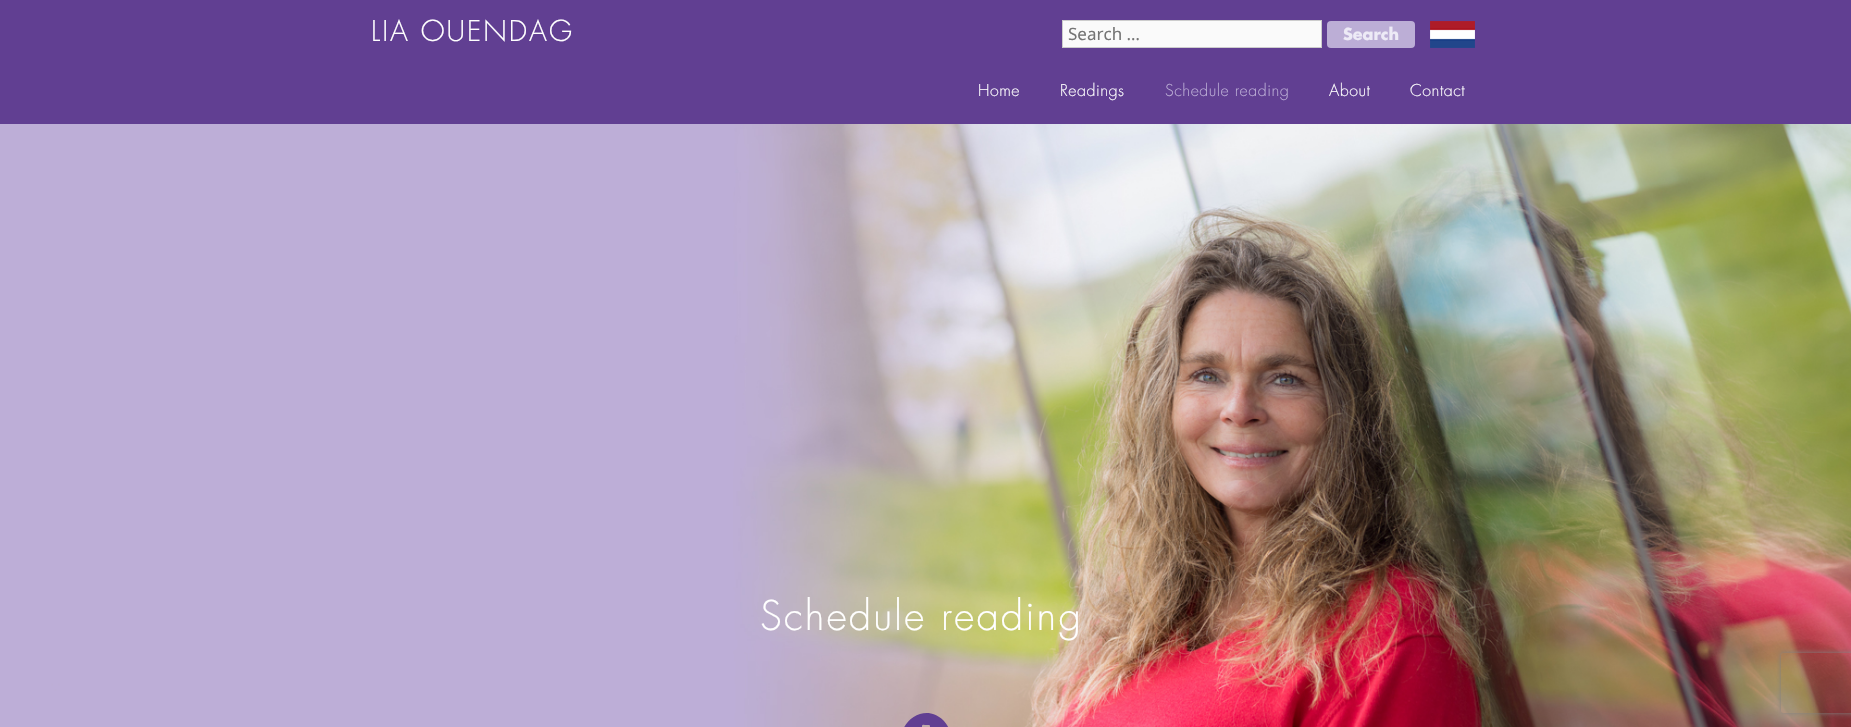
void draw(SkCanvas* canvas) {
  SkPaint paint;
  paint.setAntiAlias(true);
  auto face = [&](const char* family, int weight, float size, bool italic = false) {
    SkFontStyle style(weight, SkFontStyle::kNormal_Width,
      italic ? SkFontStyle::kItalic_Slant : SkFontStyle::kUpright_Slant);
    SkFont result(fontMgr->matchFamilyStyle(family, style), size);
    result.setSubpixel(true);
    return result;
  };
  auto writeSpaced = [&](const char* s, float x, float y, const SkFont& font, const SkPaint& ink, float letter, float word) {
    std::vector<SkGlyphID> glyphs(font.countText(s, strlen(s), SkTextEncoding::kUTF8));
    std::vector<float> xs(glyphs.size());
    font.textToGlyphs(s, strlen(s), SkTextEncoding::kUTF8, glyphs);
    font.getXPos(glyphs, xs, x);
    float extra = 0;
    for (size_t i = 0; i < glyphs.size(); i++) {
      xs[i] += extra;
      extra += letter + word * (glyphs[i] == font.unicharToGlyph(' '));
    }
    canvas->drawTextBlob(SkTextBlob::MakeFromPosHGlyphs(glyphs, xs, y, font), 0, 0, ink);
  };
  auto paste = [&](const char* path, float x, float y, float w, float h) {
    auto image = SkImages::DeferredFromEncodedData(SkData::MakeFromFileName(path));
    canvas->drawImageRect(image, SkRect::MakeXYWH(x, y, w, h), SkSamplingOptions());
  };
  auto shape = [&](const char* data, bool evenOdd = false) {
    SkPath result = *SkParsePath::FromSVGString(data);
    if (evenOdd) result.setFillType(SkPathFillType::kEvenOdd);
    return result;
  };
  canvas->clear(0xffffffff);
  paint.setColor(0xff613f92);
  canvas->drawRect(SkRect::MakeXYWH(0, 0, 1851, 124), paint);
  paint.setColor(0xfffafafa);
  canvas->drawRect(SkRect::MakeXYWH(1062.5f, 20.5f, 259, 27), paint);
  paint.setStroke(true);
  paint.setStrokeWidth(1);
  paint.setColor(0xffcccccc);
  canvas->drawRect(SkRect::MakeXYWH(1062.5f, 20.5f, 259, 27), paint);
  paint.setStroke(false);
  paint.setColor(0xffbcaed6);
  canvas->drawRoundRect(SkRect::MakeXYWH(1327, 21, 88, 27), 4, 4, paint);
  paste("img/1.png", 1430, 21, 45, 27);
  paste("img/2.png", 0, 124, 1851, 603);
  paint.setColor(0xff613f92);
  canvas->drawPath(shape("M943 720C966 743 931 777 909 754C886 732 921 698 943 720ZM922 726V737C908 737 913 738 923 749L926 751L929 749C939 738 944 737 930 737V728C930 724 930 725 926 725C925 725 922 724 922 726Z"), paint);
  canvas->save();
  canvas->clipPath(shape("M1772 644H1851V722H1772ZM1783 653H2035C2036 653 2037 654 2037 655V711C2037 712 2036 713 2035 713H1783C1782 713 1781 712 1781 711V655C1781 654 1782 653 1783 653Z", true), true);
  paint.setColor(0xff808080);
  paint.setMaskFilter(SkMaskFilter::MakeBlur(kNormal_SkBlurStyle, 2.5f));
  canvas->drawRoundRect(SkRect::MakeXYWH(1781, 653, 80, 60), 2, 2, paint);
  paint.setMaskFilter(nullptr);
  canvas->restore();
  auto f0 = face("Futura", 300, 28);
  paint.setColor(0xffffffff);
  writeSpaced("LIA OUENDAG", 371, 41, f0, paint, 2, 0);
  auto f1 = face("Noto Sans", 400, 17);
  paint.setColor(0xff757575);
  canvas->drawString("Search …", 1068, 40, f1, paint);
  auto f2 = face("Futura", 700, 16);
  paint.setColor(0xffedeaf6);
  canvas->drawString("Search", 1343, 40, f2, paint);
  auto f3 = face("Futura", 300, 16);
  paint.setColor(0xffffffff);
  writeSpaced("Home", 978, 96, f3, paint, 0.5f, 0);
  writeSpaced("Readings", 1060, 96, f3, paint, 0.5f, 0);
  paint.setColor(0xffbcaed6);
  writeSpaced("Schedule reading", 1165, 96, f3, paint, 0.5f, 0);
  paint.setColor(0xffffffff);
  writeSpaced("About", 1329, 96, f3, paint, 0.5f, 0);
  writeSpaced("Contact", 1410, 96, f3, paint, 0.5f, 0);
  auto f4 = face("Futura", 300, 40);
  writeSpaced("Schedule reading", 760, 630, f4, paint, 2, 0);
}
